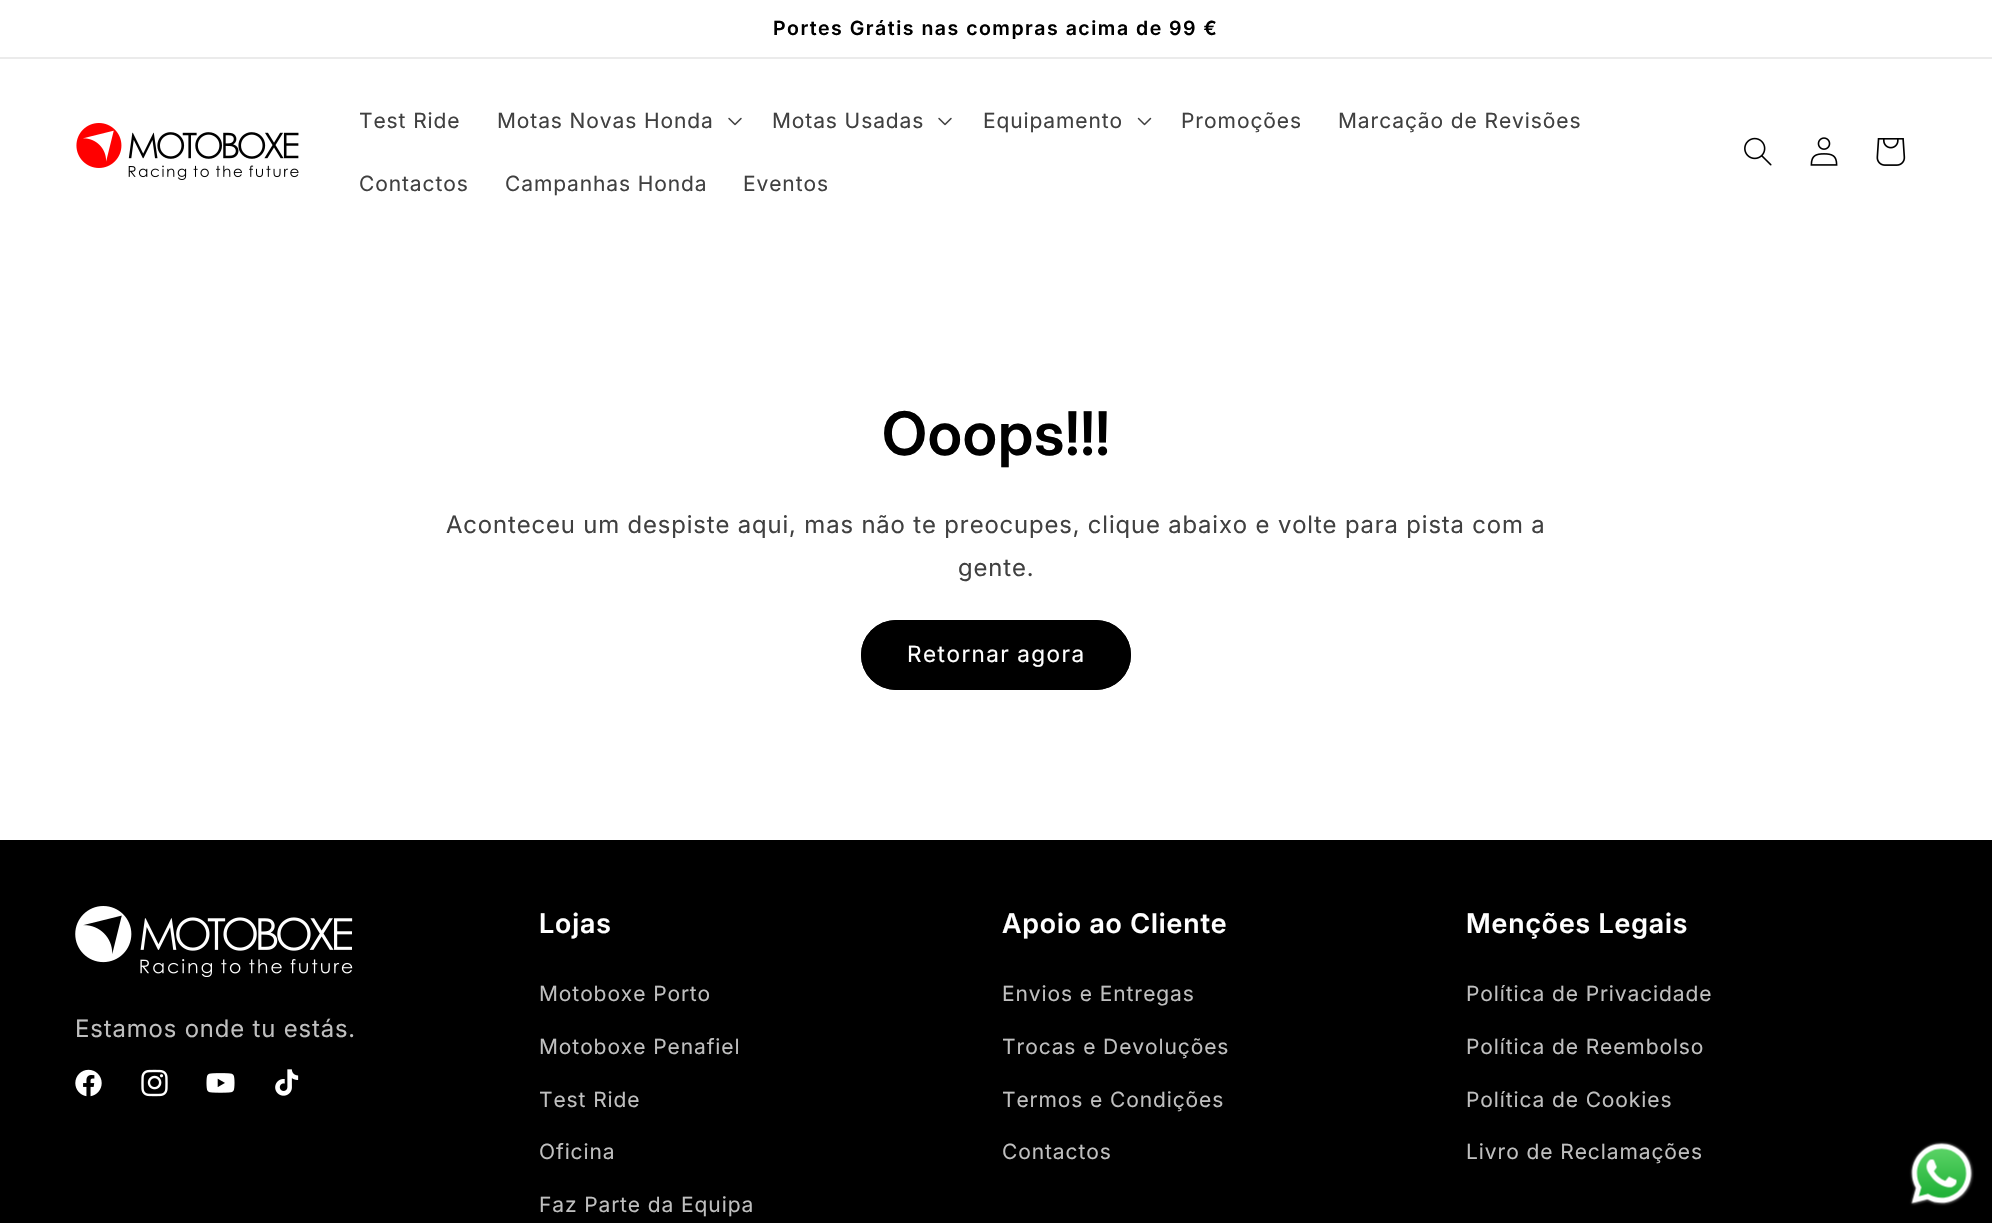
void draw(SkCanvas* canvas) {
  SkPaint paint;
  paint.setAntiAlias(true);
  auto face = [&](const char* family, int weight, float size, bool italic = false) {
    SkFontStyle style(weight, SkFontStyle::kNormal_Width,
      italic ? SkFontStyle::kItalic_Slant : SkFontStyle::kUpright_Slant);
    SkFont result(fontMgr->matchFamilyStyle(family, style), size);
    result.setSubpixel(true);
    return result;
  };
  auto writeSpaced = [&](const char* s, float x, float y, const SkFont& font, const SkPaint& ink, float letter, float word) {
    std::vector<SkGlyphID> glyphs(font.countText(s, strlen(s), SkTextEncoding::kUTF8));
    std::vector<float> xs(glyphs.size());
    font.textToGlyphs(s, strlen(s), SkTextEncoding::kUTF8, glyphs);
    font.getXPos(glyphs, xs, x);
    float extra = 0;
    for (size_t i = 0; i < glyphs.size(); i++) {
      xs[i] += extra;
      extra += letter + word * (glyphs[i] == font.unicharToGlyph(' '));
    }
    canvas->drawTextBlob(SkTextBlob::MakeFromPosHGlyphs(glyphs, xs, y, font), 0, 0, ink);
  };
  auto paste = [&](const char* path, float x, float y, float w, float h) {
    auto image = SkImages::DeferredFromEncodedData(SkData::MakeFromFileName(path));
    canvas->drawImageRect(image, SkRect::MakeXYWH(x, y, w, h), SkSamplingOptions());
  };
  canvas->clear(0xffffffff);
  paint.setColor(0xffebebeb);
  canvas->drawRect(SkRect::MakeXYWH(0, 57, 1992, 2), paint);
  paste("img/1.png", 76, 123, 223, 57);
  paste("img/2.png", 728, 117, 14, 9);
  paste("img/2.png", 938, 117, 14, 9);
  paste("img/3.png", 1137, 117, 15, 9);
  paste("img/4.png", 1744, 137, 28, 29);
  paste("img/5.png", 1810, 137, 28, 29);
  paste("img/6.png", 1876, 138, 30, 28);
  paint.setColor(0xff000000);
  canvas->drawRoundRect(SkRect::MakeXYWH(861, 620, 270, 70), 35, 35, paint);
  paint.setStroke(true);
  paint.setStrokeWidth(2);
  canvas->drawRoundRect(SkRect::MakeXYWH(862, 621, 268, 68), 34, 34, paint);
  paint.setStroke(false);
  canvas->drawRect(SkRect::MakeXYWH(0, 840, 1992, 383), paint);
  paste("img/7.png", 75, 906, 278, 71);
  paste("img/8.png", 75, 1069, 27, 28);
  paste("img/9.png", 141, 1069, 27, 28);
  paste("img/10.png", 206, 1073, 29, 20);
  paste("img/11.png", 275, 1069, 24, 27);
  paste("img/12.png", 1909, 1141, 65, 65);
  auto f0 = face("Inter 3", 600, 19.5f);
  writeSpaced("Portes Grátis nas compras acima de 99 €", 773, 35, f0, paint, 1.5f, 0);
  auto f1 = face("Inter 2", 400, 21);
  paint.setColor(0xff404040);
  {
    const struct { const char* s; float x, y; } items[] = {
      {"Test Ride", 359, 128},
      {"Motas Novas Honda", 497, 128},
      {"Motas Usadas", 772, 128},
      {"Equipamento", 983, 128},
      {"Promoções", 1181, 128},
      {"Marcação de Revisões", 1338, 128},
      {"Contactos", 359, 191},
      {"Campanhas Honda", 505, 191},
      {"Eventos", 743, 191},
    };
    for (auto [s, x, y] : items) {
      writeSpaced(s, x, y, f1, paint, 0.9f, 0);
    }
  }
  auto f2 = face("Inter 2", 600, 60);
  paint.setColor(0xff000000);
  writeSpaced("Ooops!!!", 882, 455, f2, paint, 0.9f, 0);
  auto f3 = face("Inter", 400, 24);
  paint.setColor(0xff404040);
  writeSpaced("Aconteceu um despiste aqui, mas não te preocupes, clique abaixo e volte para pista com a", 446, 533, f3, paint, 0.9f, 0);
  writeSpaced("gente.", 958, 576, f3, paint, 0.9f, 0);
  auto f4 = face("Inter 2", 400, 22.5f);
  paint.setColor(0xffffffff);
  writeSpaced("Retornar agora", 907, 662, f4, paint, 1.5f, -1);
  paint.setColor(0xffbfbfbf);
  writeSpaced("Estamos onde tu estás.", 75, 1037, f3, paint, 0.9f, 0);
  auto f5 = face("Inter", 600, 27);
  paint.setColor(0xffffffff);
  writeSpaced("Lojas", 539, 933, f5, paint, 0.9f, 0);
  paint.setColor(0xffbfbfbf);
  {
    const struct { const char* s; float x, y; } items[] = {
      {"Motoboxe Porto", 539, 1001},
      {"Motoboxe Penafiel", 539, 1054},
      {"Test Ride", 539, 1107},
      {"Oficina", 539, 1159},
      {"Faz Parte da Equipa", 539, 1212},
    };
    for (auto [s, x, y] : items) {
      writeSpaced(s, x, y, f1, paint, 0.9f, 0);
    }
  }
  paint.setColor(0xffffffff);
  writeSpaced("Apoio ao Cliente", 1002, 933, f5, paint, 0.9f, 0);
  paint.setColor(0xffbfbfbf);
  {
    const struct { const char* s; float x, y; } items[] = {
      {"Envios e Entregas", 1002, 1001},
      {"Trocas e Devoluções", 1002, 1054},
      {"Termos e Condições", 1002, 1107},
      {"Contactos", 1002, 1159},
    };
    for (auto [s, x, y] : items) {
      writeSpaced(s, x, y, f1, paint, 0.9f, 0);
    }
  }
  paint.setColor(0xffffffff);
  writeSpaced("Menções Legais", 1466, 933, f5, paint, 0.9f, 0);
  paint.setColor(0xffbfbfbf);
  {
    const struct { const char* s; float x, y; } items[] = {
      {"Política de Privacidade", 1466, 1001},
      {"Política de Reembolso", 1466, 1054},
      {"Política de Cookies", 1466, 1107},
      {"Livro de Reclamações", 1466, 1159},
    };
    for (auto [s, x, y] : items) {
      writeSpaced(s, x, y, f1, paint, 0.9f, 0);
    }
  }
}
